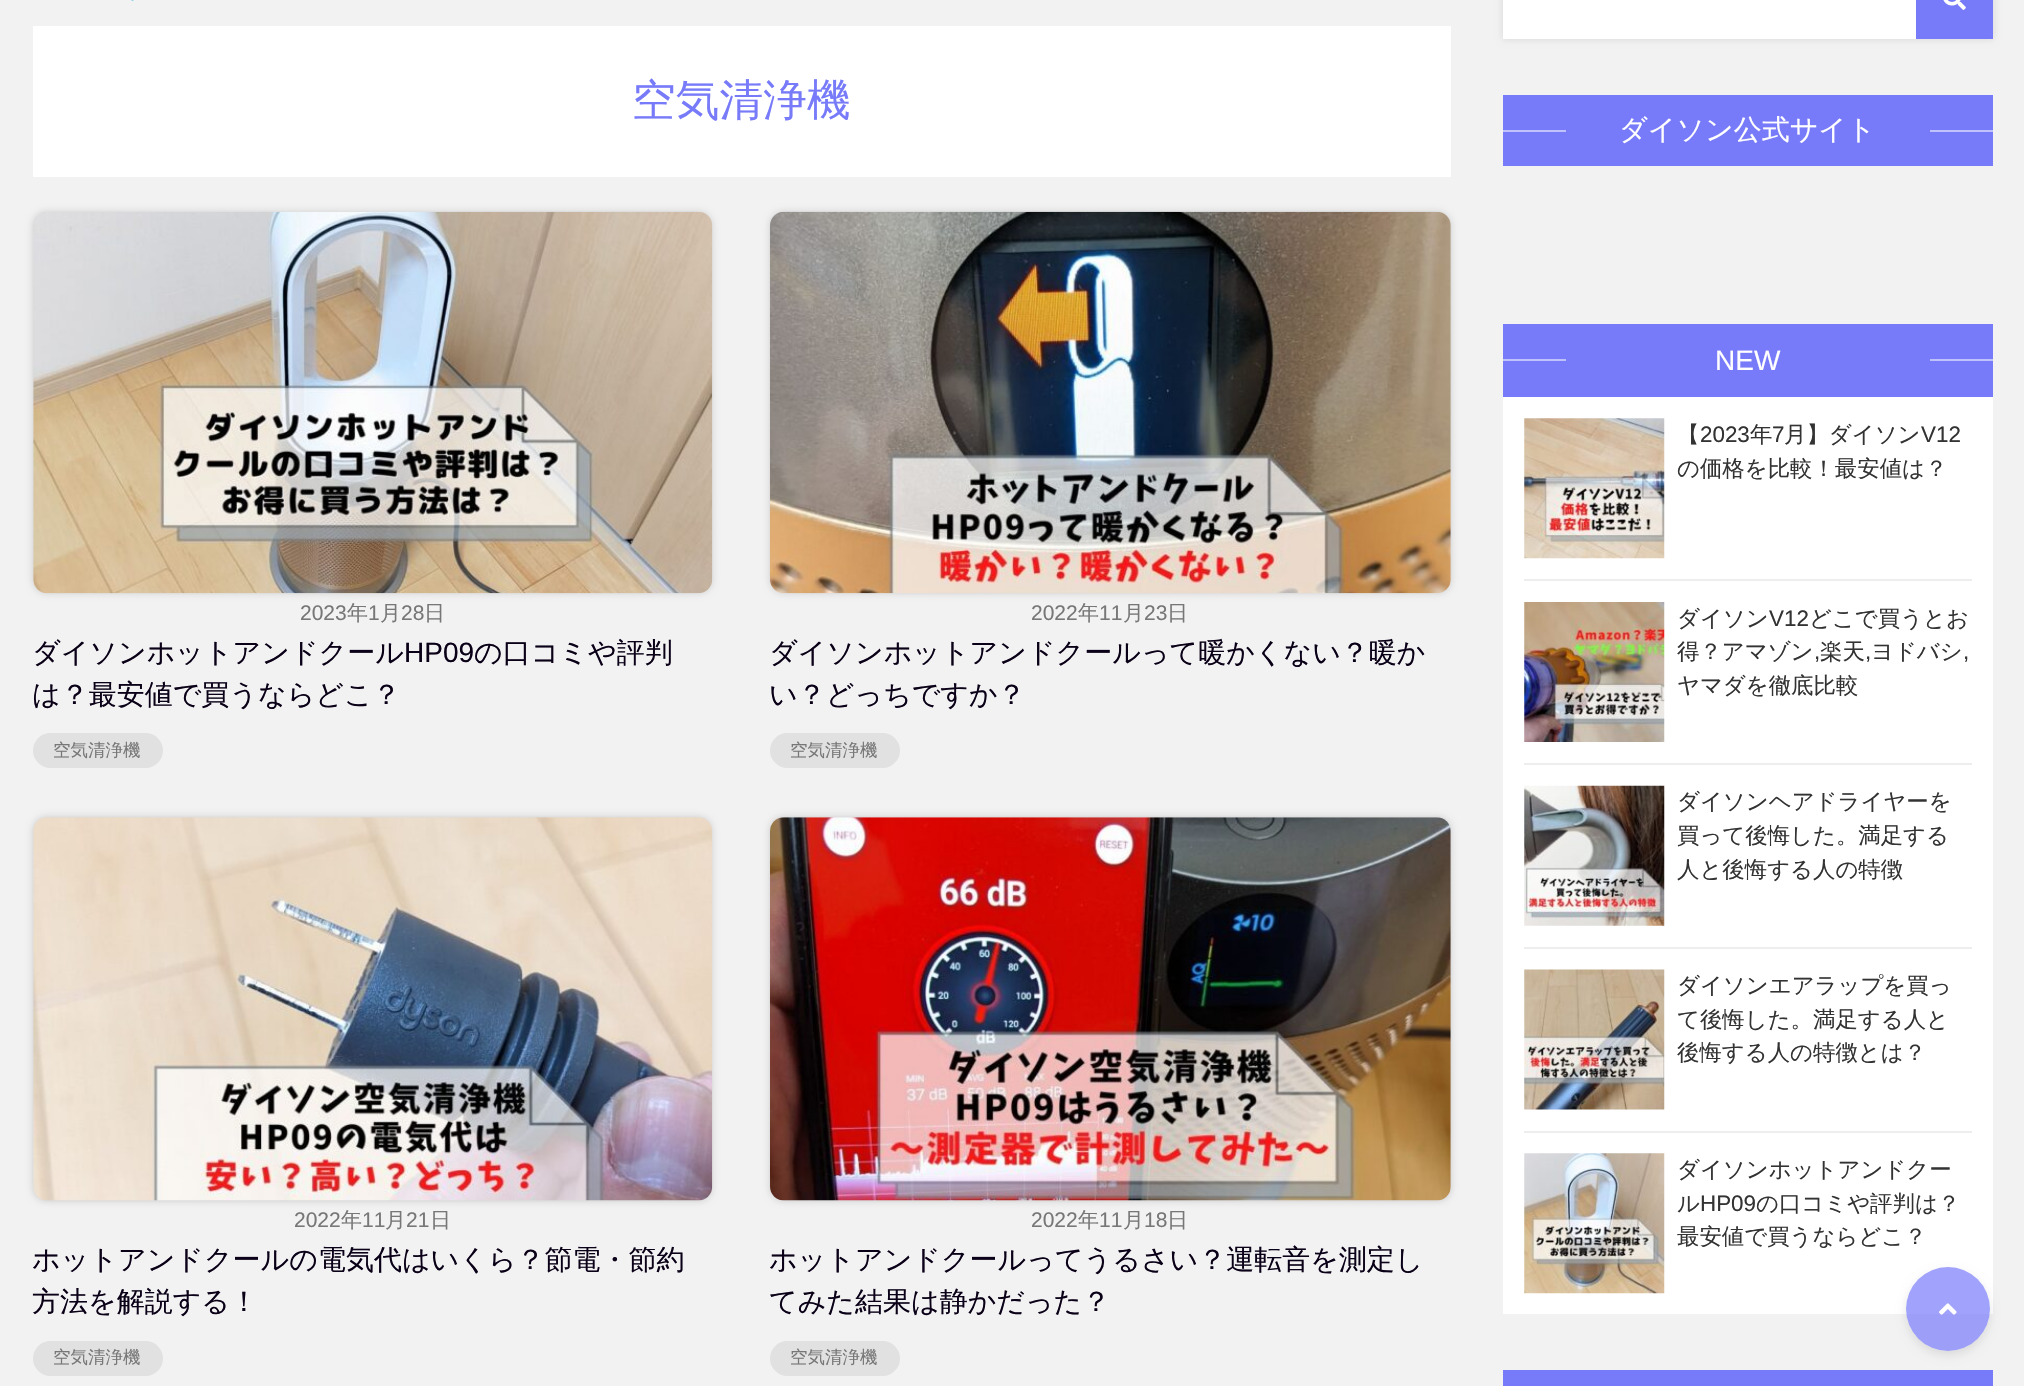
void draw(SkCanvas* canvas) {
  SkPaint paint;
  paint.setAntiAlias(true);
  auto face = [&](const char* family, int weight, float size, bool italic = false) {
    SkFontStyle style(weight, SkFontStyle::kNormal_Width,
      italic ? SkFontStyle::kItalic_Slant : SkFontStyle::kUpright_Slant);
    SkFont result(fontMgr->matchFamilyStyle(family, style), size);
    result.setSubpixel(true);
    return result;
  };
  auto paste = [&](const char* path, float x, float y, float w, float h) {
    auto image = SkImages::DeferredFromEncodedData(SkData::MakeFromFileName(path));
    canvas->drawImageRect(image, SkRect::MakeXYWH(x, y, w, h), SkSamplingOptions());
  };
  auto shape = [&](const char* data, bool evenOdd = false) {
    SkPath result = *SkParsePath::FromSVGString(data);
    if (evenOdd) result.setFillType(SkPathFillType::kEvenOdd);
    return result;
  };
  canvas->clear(0xfff2f2f2);
  paste("img/1.png", 131, 0, 3, 2);
  paint.setColor(0xffffffff);
  canvas->drawRect(SkRect::MakeXYWH(33, 26, 1418, 151), paint);
  paint.setColor(0x29000000);
  paint.setMaskFilter(SkMaskFilter::MakeBlur(kNormal_SkBlurStyle, 3.5f));
  canvas->drawRoundRect(SkRect::MakeXYWH(33, 212, 679, 381), 14, 14, paint);
  paint.setMaskFilter(nullptr);
  paste("img/2.png", 33, 211, 680, 383);
  paint.setColor(0xffe1e1e1);
  canvas->drawRoundRect(SkRect::MakeXYWH(33, 733, 130, 35), 17.5f, 17.5f, paint);
  paint.setColor(0x29000000);
  paint.setMaskFilter(SkMaskFilter::MakeBlur(kNormal_SkBlurStyle, 3.5f));
  canvas->drawRoundRect(SkRect::MakeXYWH(770, 212, 681, 381), 14, 14, paint);
  paint.setMaskFilter(nullptr);
  paste("img/3.png", 770, 211, 681, 383);
  paint.setColor(0xffe1e1e1);
  canvas->drawRoundRect(SkRect::MakeXYWH(770, 733, 130, 35), 17.5f, 17.5f, paint);
  paint.setColor(0x29000000);
  paint.setMaskFilter(SkMaskFilter::MakeBlur(kNormal_SkBlurStyle, 3.5f));
  canvas->drawRoundRect(SkRect::MakeXYWH(33, 817, 679, 384), 14, 14, paint);
  paint.setMaskFilter(nullptr);
  paste("img/4.png", 33, 817, 680, 384);
  paint.setColor(0xffe1e1e1);
  canvas->drawRoundRect(SkRect::MakeXYWH(33, 1341, 130, 35), 17.5f, 17.5f, paint);
  paint.setColor(0x29000000);
  paint.setMaskFilter(SkMaskFilter::MakeBlur(kNormal_SkBlurStyle, 3.5f));
  canvas->drawRoundRect(SkRect::MakeXYWH(770, 817, 681, 384), 14, 14, paint);
  paint.setMaskFilter(nullptr);
  paste("img/5.png", 770, 817, 681, 384);
  paint.setColor(0xffe1e1e1);
  canvas->drawRoundRect(SkRect::MakeXYWH(770, 1341, 130, 35), 17.5f, 17.5f, paint);
  paint.setColor(0x1f000000);
  paint.setMaskFilter(SkMaskFilter::MakeBlur(kNormal_SkBlurStyle, 3.5f));
  canvas->drawRect(SkRect::MakeXYWH(1503, -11, 490, 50), paint);
  paint.setMaskFilter(nullptr);
  paint.setColor(0xffffffff);
  canvas->drawRect(SkRect::MakeXYWH(1503, 0, 413, 39), paint);
  paint.setColor(0xff777af9);
  canvas->drawRect(SkRect::MakeXYWH(1916, 0, 77, 39), paint);
  paste("img/6.png", 1943, 0, 23, 10);
  {
    const struct { float x, y, w, h; SkColor color; } items[] = {
      {1503, 95, 490, 71, 0xff777af9},
      {1503, 130, 63, 2, 0xffc0c2fc},
      {1930, 130, 63, 2, 0xffc0c2fc},
      {1503, 324, 490, 73, 0xff777af9},
      {1503, 359, 63, 2, 0xffc0c2fc},
      {1930, 359, 63, 2, 0xffc0c2fc},
      {1503, 397, 490, 917, 0xffffffff},
      {1524, 579, 448, 2, 0xffeeeeee},
    };
    for (auto [x, y, w, h, color] : items) {
      paint.setColor(color);
      canvas->drawRect(SkRect::MakeXYWH(x, y, w, h), paint);
    }
  }
  paste("img/7.png", 1524, 418, 141, 141);
  canvas->drawRect(SkRect::MakeXYWH(1524, 763, 448, 2), paint);
  paste("img/8.png", 1524, 602, 141, 140);
  canvas->drawRect(SkRect::MakeXYWH(1524, 947, 448, 2), paint);
  paste("img/9.png", 1524, 785, 141, 141);
  canvas->drawRect(SkRect::MakeXYWH(1524, 1131, 448, 2), paint);
  paste("img/10.png", 1524, 969, 141, 141);
  paste("img/11.png", 1524, 1153, 141, 141);
  paint.setColor(0xff777af9);
  canvas->drawRect(SkRect::MakeXYWH(1503, 1370, 490, 16), paint);
  canvas->save();
  canvas->clipPath(shape("M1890 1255H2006V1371H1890ZM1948 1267C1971 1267 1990 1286 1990 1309C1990 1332 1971 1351 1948 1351C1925 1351 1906 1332 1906 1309C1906 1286 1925 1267 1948 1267Z", true), true);
  paint.setColor(0x1a000000);
  paint.setMaskFilter(SkMaskFilter::MakeBlur(kNormal_SkBlurStyle, 5));
  canvas->drawRoundRect(SkRect::MakeXYWH(1906, 1271, 84, 84), 42, 42, paint);
  paint.setMaskFilter(nullptr);
  canvas->restore();
  paint.setColor(0xb3777af9);
  canvas->drawCircle(1948, 1309, 42, paint);
  paste("img/12.png", 1939, 1303, 18, 12);
  auto f0 = face("WenQuanYi Zen Hei", 500, 43.75f);
  paint.setColor(0xff777af9);
  canvas->drawString("空気清浄機", 632, 115, f0, paint);
  auto f1 = face("Liberation Sans", 400, 21);
  paint.setColor(0xff777777);
  canvas->drawString("2023", 300, 620, f1, paint);
  auto f2 = face("WenQuanYi Zen Hei", 500, 21);
  canvas->drawString("年", 347, 620, f2, paint);
  canvas->drawString("1", 368, 620, f1, paint);
  canvas->drawString("月", 380, 620, f2, paint);
  canvas->drawString("28", 401, 620, f1, paint);
  canvas->drawString("日", 424, 620, f2, paint);
  auto f3 = face("WenQuanYi Zen Hei", 500, 28);
  paint.setColor(0xff0a0017);
  canvas->drawString("ダイソンホットアンドクール", 32, 662, f3, paint);
  auto f4 = face("Liberation Sans", 400, 28);
  canvas->drawString("HP09", 404, 662, f4, paint);
  canvas->drawString("の口コミや評判", 474, 662, f3, paint);
  canvas->drawString("は？最安値で買うならどこ？", 32, 704, f3, paint);
  auto f5 = face("WenQuanYi Zen Hei", 500, 17.5f);
  paint.setColor(0xff777777);
  canvas->drawString("空気清浄機", 53, 756, f5, paint);
  canvas->drawString("2022", 1031, 620, f1, paint);
  canvas->drawString("年", 1078, 620, f2, paint);
  canvas->drawString("11", 1099, 620, f1, paint);
  canvas->drawString("月", 1123, 620, f2, paint);
  canvas->drawString("23", 1144, 620, f1, paint);
  canvas->drawString("日", 1167, 620, f2, paint);
  paint.setColor(0xff0a0017);
  canvas->drawString("ダイソンホットアンドクールって暖かくない？暖か", 769, 662, f3, paint);
  canvas->drawString("い？どっちですか？", 769, 704, f3, paint);
  paint.setColor(0xff777777);
  canvas->drawString("空気清浄機", 790, 756, f5, paint);
  canvas->drawString("2022", 294, 1227, f1, paint);
  canvas->drawString("年", 341, 1227, f2, paint);
  canvas->drawString("11", 362, 1227, f1, paint);
  canvas->drawString("月", 385, 1227, f2, paint);
  canvas->drawString("21", 406, 1227, f1, paint);
  canvas->drawString("日", 430, 1227, f2, paint);
  paint.setColor(0xff0a0017);
  canvas->drawString("ホットアンドクールの電気代はいくら？節電・節約", 32, 1269, f3, paint);
  canvas->drawString("方法を解説する！", 32, 1311, f3, paint);
  paint.setColor(0xff777777);
  canvas->drawString("空気清浄機", 53, 1363, f5, paint);
  canvas->drawString("2022", 1031, 1227, f1, paint);
  canvas->drawString("年", 1078, 1227, f2, paint);
  canvas->drawString("11", 1099, 1227, f1, paint);
  canvas->drawString("月", 1123, 1227, f2, paint);
  canvas->drawString("18", 1144, 1227, f1, paint);
  canvas->drawString("日", 1167, 1227, f2, paint);
  paint.setColor(0xff0a0017);
  canvas->drawString("ホットアンドクールってうるさい？運転音を測定し", 769, 1269, f3, paint);
  canvas->drawString("てみた結果は静かだった？", 769, 1311, f3, paint);
  paint.setColor(0xff777777);
  canvas->drawString("空気清浄機", 790, 1363, f5, paint);
  paint.setColor(0xffffffff);
  canvas->drawString("ダイソン公式サイト", 1619, 139, f3, paint);
  canvas->drawString("NEW", 1715, 370, f4, paint);
  auto f6 = face("WenQuanYi Zen Hei", 500, 22.4f);
  paint.setColor(0xff333333);
  canvas->drawString("【", 1677, 442, f6, paint);
  auto f7 = face("Liberation Sans", 400, 22.4f);
  canvas->drawString("2023", 1700, 442, f7, paint);
  canvas->drawString("年", 1750, 442, f6, paint);
  canvas->drawString("7", 1772, 442, f7, paint);
  canvas->drawString("月】ダイソン", 1784, 442, f6, paint);
  canvas->drawString("V12", 1921, 442, f7, paint);
  canvas->drawString("の価格を比較！最安値は？", 1677, 476, f6, paint);
  canvas->drawString("ダイソン", 1677, 626, f6, paint);
  canvas->drawString("V12", 1769, 626, f7, paint);
  canvas->drawString("どこで買うとお", 1809, 626, f6, paint);
  canvas->drawString("得？アマゾン", 1677, 659, f6, paint);
  canvas->drawString(",", 1814, 659, f7, paint);
  canvas->drawString("楽天", 1820, 659, f6, paint);
  canvas->drawString(",", 1865, 659, f7, paint);
  canvas->drawString("ヨドバシ", 1871, 659, f6, paint);
  canvas->drawString(",", 1963, 659, f7, paint);
  {
    const struct { const char* s; float x, y; } items[] = {
      {"ヤマダを徹底比較", 1677, 693},
      {"ダイソンヘアドライヤーを", 1677, 809},
      {"買って後悔した。満足する", 1677, 843},
      {"人と後悔する人の特徴", 1677, 877},
      {"ダイソンエアラップを買っ", 1677, 993},
      {"て後悔した。満足する人と", 1677, 1027},
      {"後悔する人の特徴とは？", 1677, 1060},
      {"ダイソンホットアンドクー", 1677, 1177},
      {"ル", 1677, 1211},
    };
    for (auto [s, x, y] : items) {
      canvas->drawString(s, x, y, f6, paint);
    }
  }
  canvas->drawString("HP09", 1700, 1211, f7, paint);
  canvas->drawString("の口コミや評判は？", 1756, 1211, f6, paint);
  canvas->drawString("最安値で買うならどこ？", 1677, 1244, f6, paint);
}
